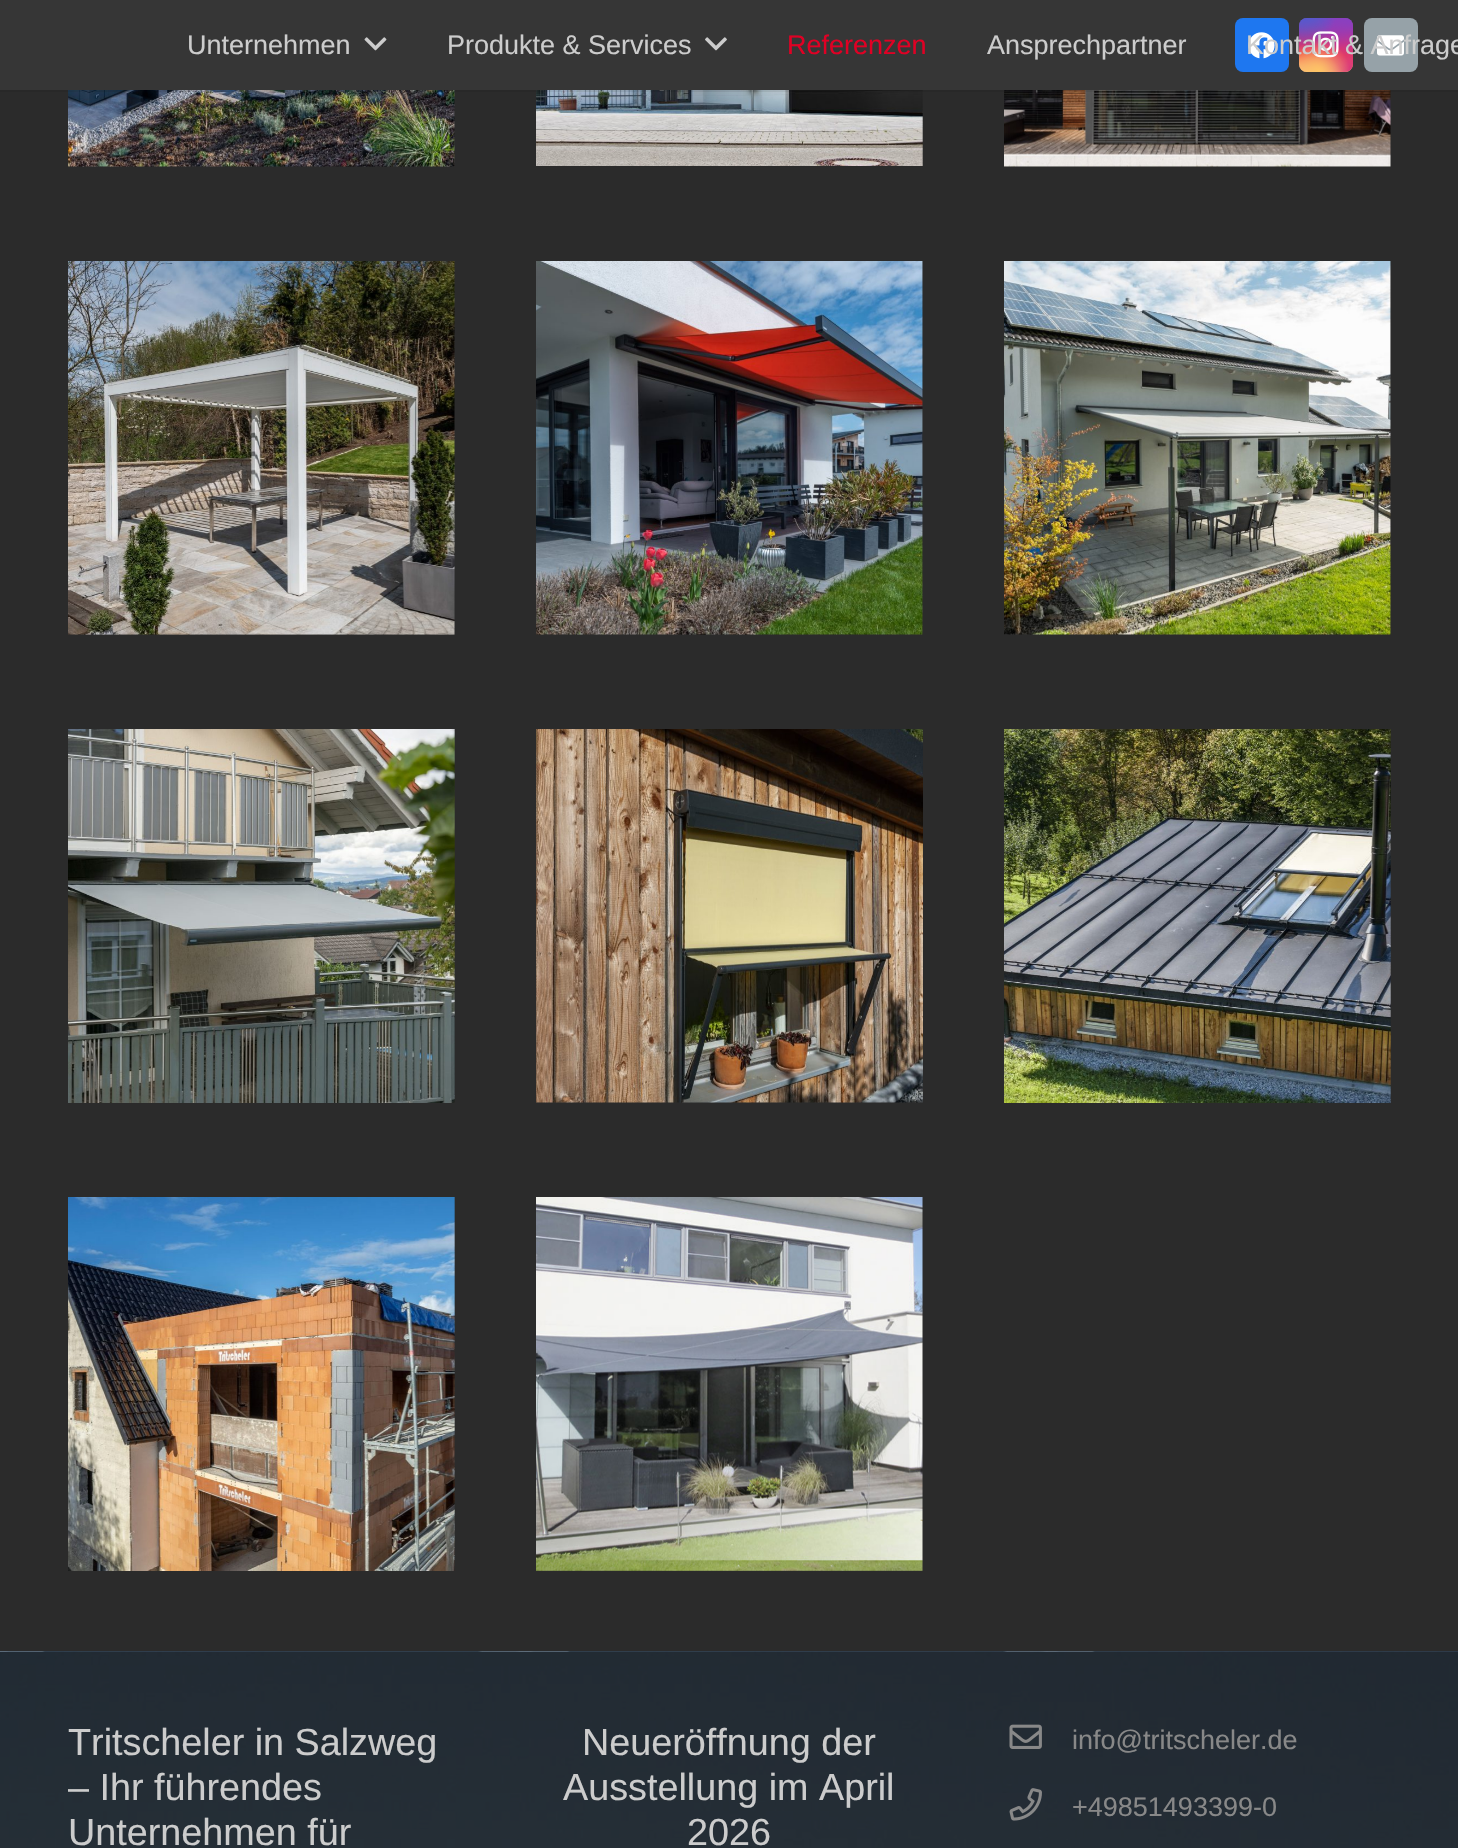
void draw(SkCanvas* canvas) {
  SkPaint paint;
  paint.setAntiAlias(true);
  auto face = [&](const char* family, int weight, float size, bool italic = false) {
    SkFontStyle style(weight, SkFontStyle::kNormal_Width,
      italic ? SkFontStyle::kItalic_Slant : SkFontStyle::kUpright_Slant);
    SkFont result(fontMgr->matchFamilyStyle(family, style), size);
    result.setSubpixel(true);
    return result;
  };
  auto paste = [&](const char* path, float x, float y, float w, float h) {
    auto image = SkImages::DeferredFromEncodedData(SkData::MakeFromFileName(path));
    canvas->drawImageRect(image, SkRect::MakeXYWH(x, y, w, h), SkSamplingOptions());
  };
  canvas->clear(0xff2b2b2b);
  paste("img/6.png", 68, 90, 387, 77);
  paste("img/7.png", 536, 90, 387, 76);
  paste("img/8.png", 1004, 90, 387, 77);
  paint.setColor(0x14000000);
  canvas->drawRect(SkRect::MakeXYWH(0, 90, 1458, 2), paint);
  paint.setColor(0xff363636);
  canvas->drawRect(SkRect::MakeXYWH(0, 0, 1458, 90), paint);
  paint.setColor(0xff1e77f0);
  canvas->drawRoundRect(SkRect::MakeXYWH(1235, 18, 54, 54), 8, 8, paint);
  paste("img/1.png", 1248, 32, 27, 27);
  {
    const SkColor colors[] = {0xff6559ca, 0xffbc318f, 0xffe42e66, 0xfffa5332, 0xffffdc80};
    const float stops[] = {0, 0.3f, 0.5f, 0.7f, 1};
    const SkPoint ends[] = {{1326, 18}, {1326, 72}};
    paint.setShader(SkGradientShader::MakeLinear(ends, colors, stops, 5, SkTileMode::kClamp));
    paint.setAlpha(255);
  }
  canvas->drawRoundRect(SkRect::MakeXYWH(1299, 18, 54, 54), 8, 8, paint);
  {
    const SkColor colors[] = {0xffd9317a, 0x00d9317a};
    const float stops[] = {0, 1};
    paint.setShader(SkGradientShader::MakeRadial({1353, 72}, 76, colors, stops, 2, SkTileMode::kClamp));
    paint.setAlpha(255);
  }
  canvas->drawRoundRect(SkRect::MakeXYWH(1299, 18, 54, 54), 8, 8, paint);
  {
    const SkColor colors[] = {0xff893dc2, 0x00893dc2};
    const float stops[] = {0, 0.5f};
    SkMatrix m = SkMatrix::Translate(1331, 7.2f).preScale(46, 92);
    paint.setShader(SkGradientShader::MakeRadial({0, 0}, 1, colors, stops, 2, SkTileMode::kClamp, 0, &m));
    paint.setAlpha(255);
  }
  canvas->drawRoundRect(SkRect::MakeXYWH(1299, 18, 54, 54), 8, 8, paint);
  {
    const SkColor colors[] = {0xff893dc2, 0x00893dc2};
    const float stops[] = {0, 0.5f};
    paint.setShader(SkGradientShader::MakeRadial({1353, 18}, 76, colors, stops, 2, SkTileMode::kClamp));
    paint.setAlpha(255);
  }
  canvas->drawRoundRect(SkRect::MakeXYWH(1299, 18, 54, 54), 8, 8, paint);
  {
    const SkColor colors[] = {0xff5258cf, 0x005258cf};
    const float stops[] = {0, 0.5f};
    SkMatrix m = SkMatrix::Translate(1310, -9).preScale(61, 115);
    paint.setShader(SkGradientShader::MakeRadial({0, 0}, 1, colors, stops, 2, SkTileMode::kClamp, 0, &m));
    paint.setAlpha(255);
  }
  canvas->drawRoundRect(SkRect::MakeXYWH(1299, 18, 54, 54), 8, 8, paint);
  {
    const SkColor colors[] = {0xff5258cf, 0x005258cf};
    const float stops[] = {0, 0.5f};
    SkMatrix m = SkMatrix::Translate(1299, 4.5f).preScale(76, 95);
    paint.setShader(SkGradientShader::MakeRadial({0, 0}, 1, colors, stops, 2, SkTileMode::kClamp, 0, &m));
    paint.setAlpha(255);
  }
  canvas->drawRoundRect(SkRect::MakeXYWH(1299, 18, 54, 54), 8, 8, paint);
  {
    const SkColor colors[] = {0xfffeda7e, 0x00feda7e};
    const float stops[] = {0, 0.5f};
    paint.setShader(SkGradientShader::MakeRadial({1304, 94}, 90, colors, stops, 2, SkTileMode::kClamp));
    paint.setAlpha(255);
  }
  canvas->drawRoundRect(SkRect::MakeXYWH(1299, 18, 54, 54), 8, 8, paint);
  {
    const SkColor colors[] = {0xfffec564, 0x00fec564};
    const float stops[] = {0, 0.5f};
    paint.setShader(SkGradientShader::MakeRadial({1318, 72}, 64, colors, stops, 2, SkTileMode::kClamp));
    paint.setAlpha(255);
  }
  canvas->drawRoundRect(SkRect::MakeXYWH(1299, 18, 54, 54), 8, 8, paint);
  paste("img/2.png", 1312, 31, 27, 27);
  paint.setShader(nullptr);
  paint.setColor(0xff96a2a8);
  canvas->drawRoundRect(SkRect::MakeXYWH(1364, 18, 54, 54), 8, 8, paint);
  paste("img/3.png", 1377, 35, 27, 21);
  paste("img/4.png", 364, 37, 23, 14);
  paste("img/5.png", 705, 37, 22, 14);
  paste("img/9.png", 68, 261, 387, 374);
  paste("img/10.png", 536, 261, 387, 374);
  paste("img/11.png", 1004, 261, 387, 374);
  paste("img/12.png", 68, 729, 387, 374);
  paste("img/13.png", 536, 729, 387, 374);
  paste("img/14.png", 1004, 729, 387, 374);
  paste("img/15.png", 68, 1197, 387, 374);
  paste("img/16.png", 536, 1197, 387, 374);
  paste("img/17.png", 0, 1651, 1458, 1);
  paste("img/18.png", 0, 1651, 1458, 197);
  paste("img/19.png", 1009, 1724, 33, 25);
  paste("img/20.png", 1009, 1788, 33, 33);
  auto f0 = face("Liberation Sans", 400, 27);
  paint.setColor(0xffcccccc);
  canvas->drawString("Unternehmen", 187, 54, f0, paint);
  canvas->drawString("Produkte & Services", 447, 54, f0, paint);
  paint.setColor(0xffe00024);
  canvas->drawString("Referenzen", 787, 54, f0, paint);
  paint.setColor(0xffcccccc);
  canvas->drawString("Ansprechpartner", 987, 54, f0, paint);
  canvas->drawString("Kontakt & Anfrage", 1246, 54, f0, paint);
  auto f1 = face("Liberation Sans", 400, 37.75f);
  {
    const struct { const char* s; float x, y; } items[] = {
      {"Tritscheler in Salzweg", 68, 1755},
      {"– Ihr führendes", 68, 1800},
      {"Unternehmen für", 68, 1845},
      {"Neueröffnung der", 582, 1755},
      {"Ausstellung im April", 563, 1800},
      {"2026", 687, 1845},
    };
    for (auto [s, x, y] : items) {
      canvas->drawString(s, x, y, f1, paint);
    }
  }
  paint.setColor(0xff888888);
  canvas->drawString("info@tritscheler.de", 1072, 1749, f0, paint);
  canvas->drawString("+49851493399-0", 1072, 1816, f0, paint);
}
